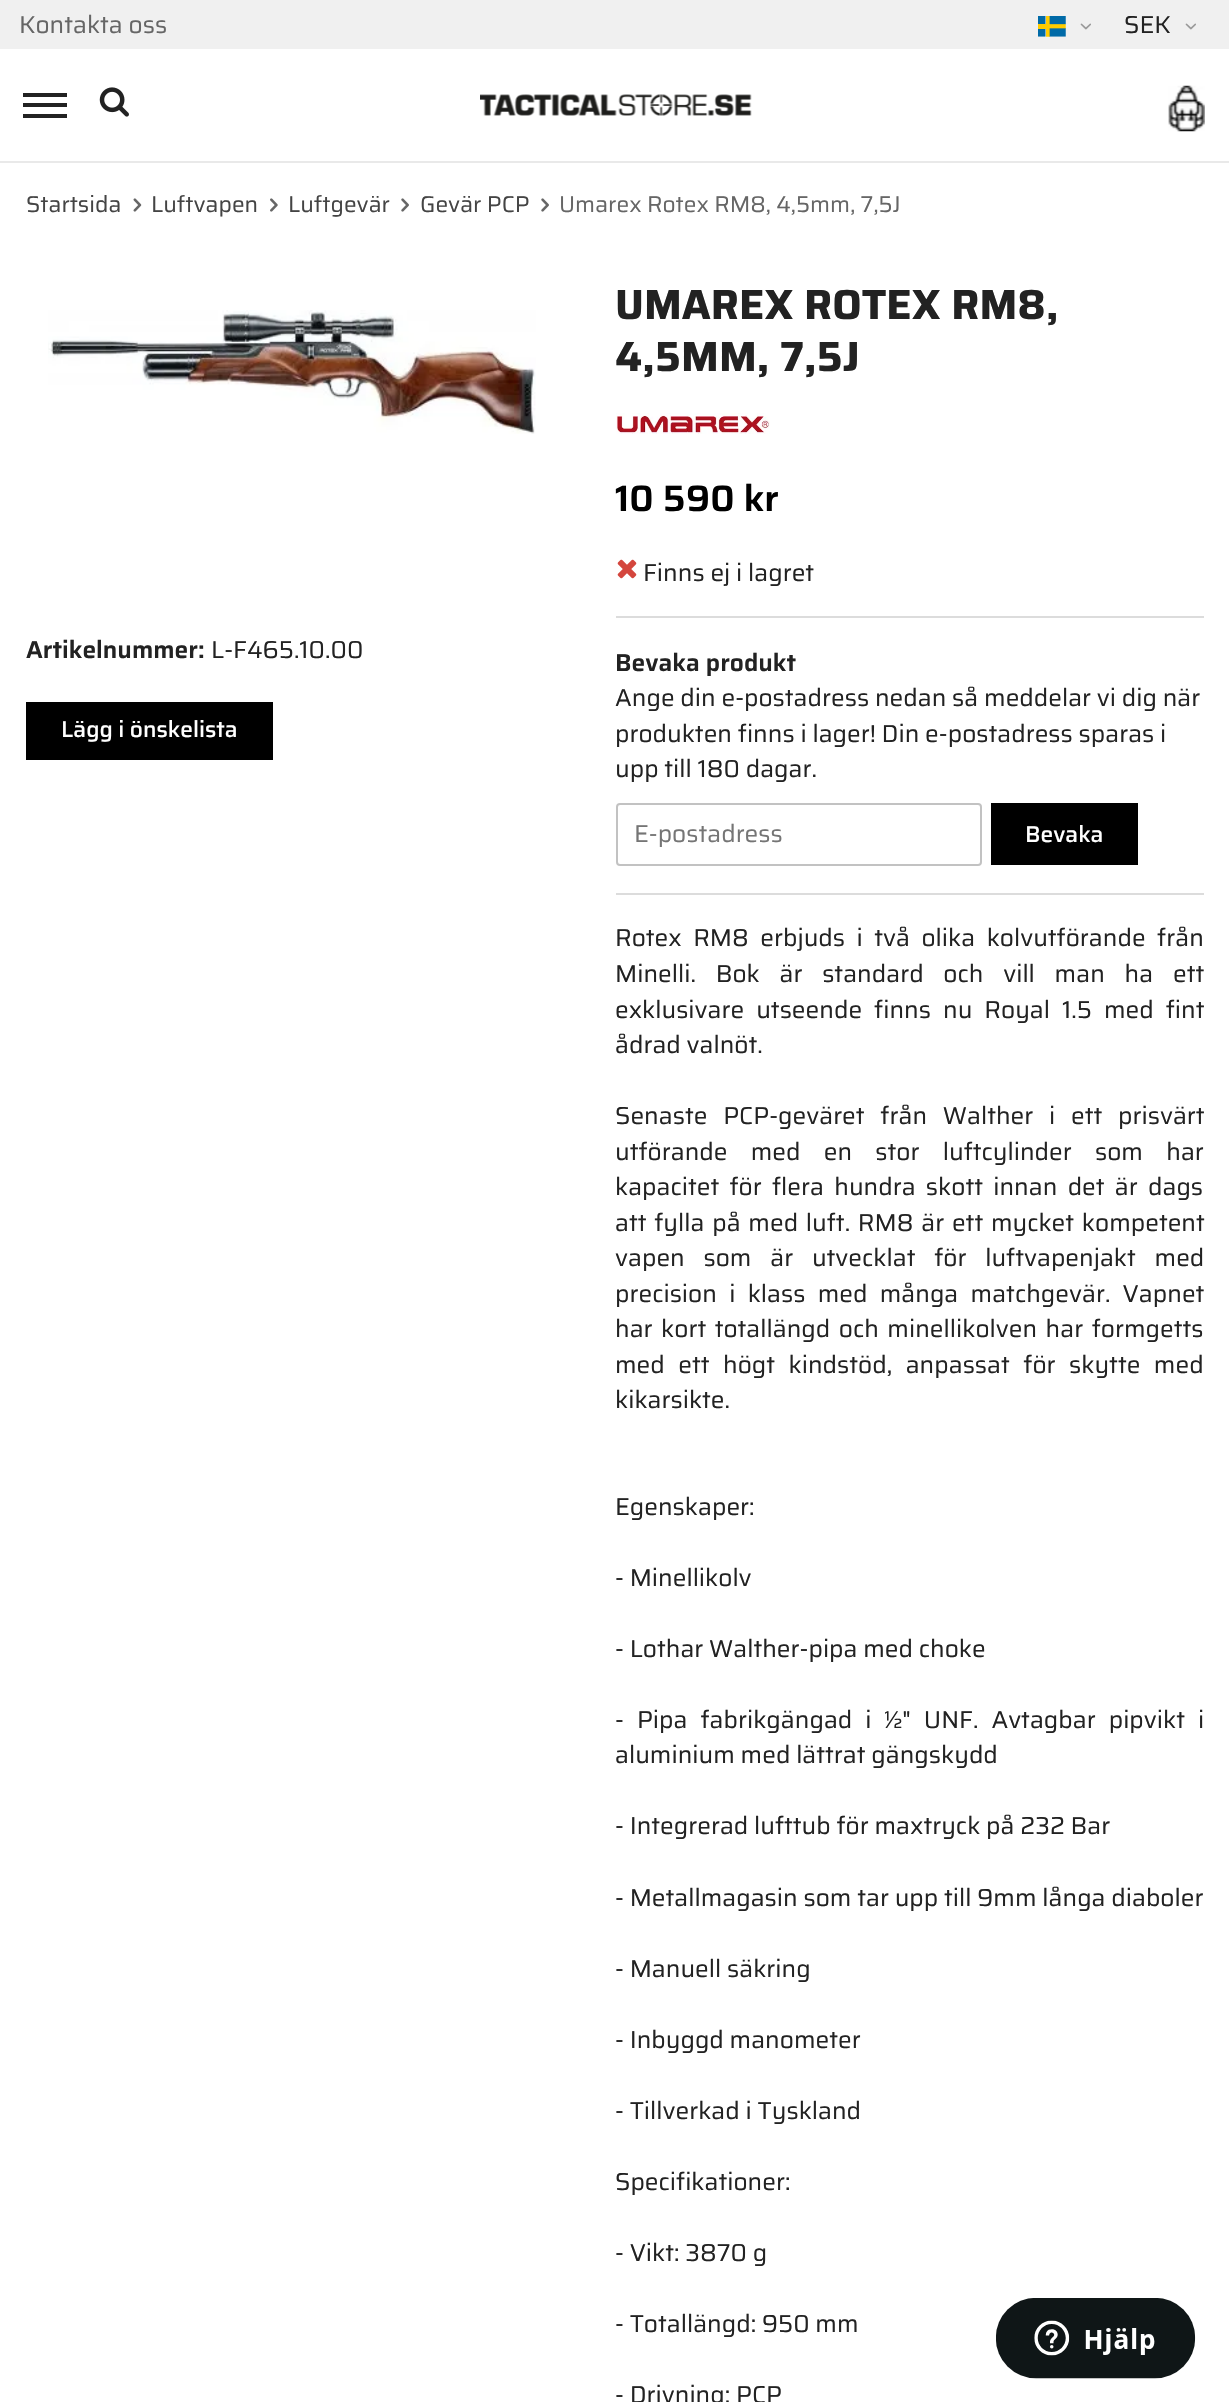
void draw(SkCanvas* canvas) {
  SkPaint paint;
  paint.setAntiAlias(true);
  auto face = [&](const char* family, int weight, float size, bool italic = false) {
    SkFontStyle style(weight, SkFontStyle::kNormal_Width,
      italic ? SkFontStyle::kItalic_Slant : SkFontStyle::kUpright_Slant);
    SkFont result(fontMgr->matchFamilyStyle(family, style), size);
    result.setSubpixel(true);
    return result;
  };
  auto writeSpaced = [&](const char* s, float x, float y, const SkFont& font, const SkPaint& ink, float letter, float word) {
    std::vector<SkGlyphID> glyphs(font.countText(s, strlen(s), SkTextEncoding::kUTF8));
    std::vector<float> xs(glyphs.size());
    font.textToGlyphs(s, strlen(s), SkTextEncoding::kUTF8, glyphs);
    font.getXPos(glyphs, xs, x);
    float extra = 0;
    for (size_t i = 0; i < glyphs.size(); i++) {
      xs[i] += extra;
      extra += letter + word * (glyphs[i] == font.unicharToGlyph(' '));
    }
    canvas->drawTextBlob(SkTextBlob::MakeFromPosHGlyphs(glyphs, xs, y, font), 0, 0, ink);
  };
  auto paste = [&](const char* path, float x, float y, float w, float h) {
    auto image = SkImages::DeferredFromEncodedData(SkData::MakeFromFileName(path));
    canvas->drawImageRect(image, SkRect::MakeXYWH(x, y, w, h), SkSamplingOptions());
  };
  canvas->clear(0xffffffff);
  paint.setColor(0xfff0f0f0);
  canvas->drawRect(SkRect::MakeXYWH(0, 0, 1229, 49), paint);
  paste("img/1.png", 1038, 16, 28, 21);
  paste("img/2.png", 1080, 23, 11, 7);
  paste("img/2.png", 1185, 23, 11, 7);
  {
    const struct { float x, y, w, h; SkColor color; } items[] = {
      {0, 161, 1229, 2, 0xffe9e9e9},
      {23, 93, 44, 4, 0xff222222},
      {23, 103, 44, 4, 0xff222222},
      {23, 114, 44, 4, 0xff222222},
    };
    for (auto [x, y, w, h, color] : items) {
      paint.setColor(color);
      canvas->drawRect(SkRect::MakeXYWH(x, y, w, h), paint);
    }
  }
  paste("img/3.png", 99, 87, 30, 30);
  paste("img/4.png", 480, 94, 272, 22);
  paste("img/5.png", 1168, 85, 37, 47);
  paste("img/6.png", 133, 198, 9, 14);
  paste("img/7.png", 270, 198, 8, 14);
  paste("img/8.png", 401, 198, 8, 14);
  paste("img/8.png", 541, 198, 8, 14);
  paint.setColor(0xff000000);
  canvas->drawRect(SkRect::MakeXYWH(26, 702, 247, 58), paint);
  paste("img/9.png", 48, 310, 488, 124);
  paste("img/10.png", 616, 413, 154, 21);
  paste("img/11.png", 617, 559, 20, 20);
  paint.setColor(0xffdcdcdc);
  canvas->drawRect(SkRect::MakeXYWH(616, 616, 588, 2), paint);
  canvas->drawRect(SkRect::MakeXYWH(616, 893, 588, 2), paint);
  paint.setStroke(true);
  paint.setStrokeWidth(2);
  paint.setColor(0xffc2c2c2);
  canvas->drawRoundRect(SkRect::MakeXYWH(617, 804, 364, 61), 3, 3, paint);
  paint.setStroke(false);
  paint.setColor(0xff000000);
  canvas->drawRect(SkRect::MakeXYWH(991, 803, 147, 62), paint);
  paste("img/12.png", 996, 2298, 200, 81);
  auto f0 = face("Saira", 400, 24.5f);
  paint.setColor(0xff666666);
  canvas->drawString("Kontakta oss", 19, 33, f0, paint);
  paint.setColor(0xff222222);
  canvas->drawString("SEK", 1124, 33, f0, paint);
  auto f1 = face("Saira", 400, 22.75f);
  paint.setColor(0xff444444);
  {
    const struct { const char* s; float x, y; } items[] = {
      {"Startsida", 26, 212},
      {"Luftvapen", 151, 212},
      {"Luftgevär", 288, 212},
      {"Gevär PCP", 420, 212},
    };
    for (auto [s, x, y] : items) {
      canvas->drawString(s, x, y, f1, paint);
    }
  }
  paint.setColor(0xff666666);
  canvas->drawString("Umarex Rotex RM8, 4,5mm, 7,5J", 559, 212, f1, paint);
  auto f2 = face("Saira", 600, 24.5f);
  paint.setColor(0xff222222);
  canvas->drawString("Artikelnummer:", 26, 658, f2, paint);
  canvas->drawString("L-F465.10.00", 211, 658, f0, paint);
  auto f3 = face("Saira", 500, 22.75f);
  paint.setColor(0xffffffff);
  canvas->drawString("Lägg i önskelista", 61, 737, f3, paint);
  auto f4 = face("Saira", 700, 42);
  paint.setColor(0xff222222);
  canvas->drawString("UMAREX ROTEX RM8,", 615, 319, f4, paint);
  canvas->drawString("4,5MM, 7,5J", 615, 371, f4, paint);
  auto f5 = face("Saira", 600, 36.75f);
  paint.setColor(0xff000000);
  canvas->drawString("10 590 kr", 615, 511, f5, paint);
  paint.setColor(0xff222222);
  canvas->drawString("Finns ej i lagret", 643, 581, f0, paint);
  canvas->drawString("Bevaka produkt", 615, 671, f2, paint);
  {
    const struct { const char* s; float x, y; } items[] = {
      {"Ange din e-postadress nedan så meddelar vi dig när", 615, 706},
      {"produkten finns i lager! Din e-postadress sparas i", 615, 742},
      {"upp till 180 dagar.", 615, 777},
    };
    for (auto [s, x, y] : items) {
      canvas->drawString(s, x, y, f0, paint);
    }
  }
  paint.setColor(0xff757575);
  canvas->drawString("E-postadress", 634, 842, f0, paint);
  paint.setColor(0xffffffff);
  canvas->drawString("Bevaka", 1025, 842, f3, paint);
  paint.setColor(0xff222222);
  writeSpaced("Rotex RM8 erbjuds i två olika kolvutförande från", 615, 946, f0, paint, 0, 5.75f);
  writeSpaced("Minelli. Bok är standard och vill man ha ett", 615, 982, f0, paint, 0, 14);
  writeSpaced("exklusivare utseende finns nu Royal 1.5 med fint", 615, 1018, f0, paint, 0, 6.25f);
  canvas->drawString("ådrad valnöt.", 615, 1053, f0, paint);
  writeSpaced("Senaste PCP-geväret från Walther i ett prisvärt", 615, 1124, f0, paint, 0, 10);
  writeSpaced("utförande med en stor luftcylinder som har", 615, 1160, f0, paint, 0, 17.5f);
  writeSpaced("kapacitet för flera hundra skott innan det är dags", 615, 1195, f0, paint, 0, 4.5f);
  writeSpaced("att fylla på med luft. RM8 är ett mycket kompetent", 615, 1231, f0, paint, 0, 2);
  writeSpaced("vapen som är utvecklat för luftvapenjakt med", 615, 1266, f0, paint, 0, 13);
  writeSpaced("precision i klass med många matchgevär. Vapnet", 615, 1302, f0, paint, 0, 6.5f);
  writeSpaced("har kort totallängd och minellikolven har formgetts", 615, 1337, f0, paint, 0, 2.75f);
  writeSpaced("med ett högt kindstöd, anpassat för skytte med", 615, 1373, f0, paint, 0, 7.75f);
  {
    const struct { const char* s; float x, y; } items[] = {
      {"kikarsikte.", 615, 1408},
      {"Egenskaper:", 615, 1515},
      {"- Minellikolv", 615, 1586},
      {"- Lothar Walther-pipa med choke", 615, 1657},
    };
    for (auto [s, x, y] : items) {
      canvas->drawString(s, x, y, f0, paint);
    }
  }
  writeSpaced("- Pipa fabrikgängad i ½\" UNF. Avtagbar pipvikt i", 615, 1728, f0, paint, 0, 7.25f);
  {
    const struct { const char* s; float x, y; } items[] = {
      {"aluminium med lättrat gängskydd", 615, 1763},
      {"- Integrerad lufttub för maxtryck på 232 Bar", 615, 1834},
      {"- Metallmagasin som tar upp till 9mm långa diaboler", 615, 1906},
      {"- Manuell säkring", 615, 1977},
      {"- Inbyggd manometer", 615, 2048},
      {"- Tillverkad i Tyskland", 615, 2119},
      {"Specifikationer:", 615, 2190},
      {"- Vikt: 3870 g", 615, 2261},
      {"- Totallängd: 950 mm", 615, 2332},
      {"- Drivning: PCP", 615, 2403},
    };
    for (auto [s, x, y] : items) {
      canvas->drawString(s, x, y, f0, paint);
    }
  }
}
